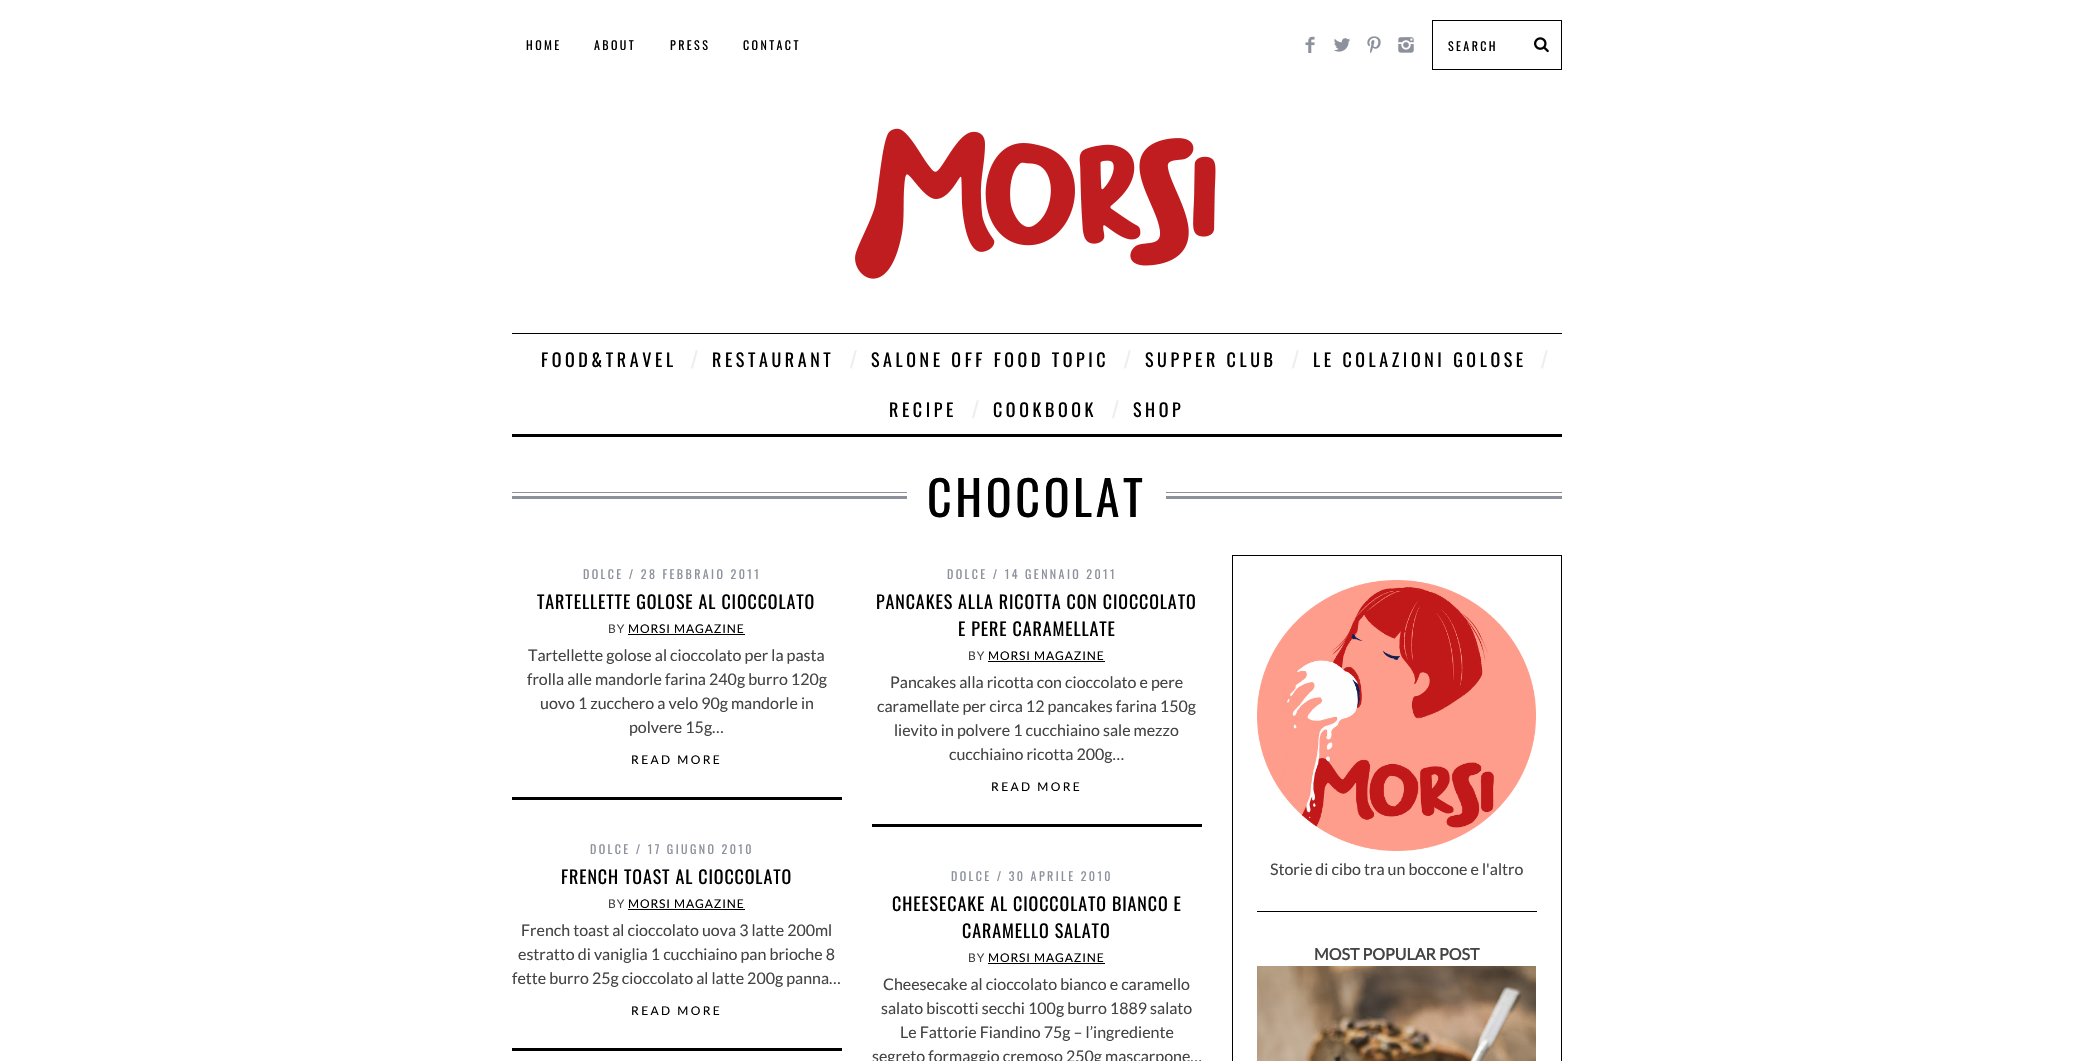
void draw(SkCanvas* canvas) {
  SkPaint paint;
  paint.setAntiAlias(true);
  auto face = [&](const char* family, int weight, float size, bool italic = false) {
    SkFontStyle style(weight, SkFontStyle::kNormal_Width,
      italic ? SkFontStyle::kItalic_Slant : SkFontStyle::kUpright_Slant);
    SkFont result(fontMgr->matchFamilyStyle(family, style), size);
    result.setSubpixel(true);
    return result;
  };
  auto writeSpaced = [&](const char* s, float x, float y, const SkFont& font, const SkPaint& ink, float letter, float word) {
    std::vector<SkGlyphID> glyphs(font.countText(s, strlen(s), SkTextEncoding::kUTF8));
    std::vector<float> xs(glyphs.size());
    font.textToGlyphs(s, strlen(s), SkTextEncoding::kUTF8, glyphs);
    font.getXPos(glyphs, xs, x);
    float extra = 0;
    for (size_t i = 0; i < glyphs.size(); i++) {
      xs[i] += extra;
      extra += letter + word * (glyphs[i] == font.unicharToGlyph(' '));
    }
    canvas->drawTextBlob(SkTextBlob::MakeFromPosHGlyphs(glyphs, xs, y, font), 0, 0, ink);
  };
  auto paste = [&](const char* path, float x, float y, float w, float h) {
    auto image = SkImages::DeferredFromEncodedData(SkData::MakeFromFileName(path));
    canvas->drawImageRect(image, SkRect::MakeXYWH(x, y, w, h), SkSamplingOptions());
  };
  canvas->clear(0xffffffff);
  paste("img/1.png", 1305, 36, 10, 17);
  paste("img/2.png", 1334, 38, 17, 14);
  paste("img/3.png", 1367, 36, 14, 18);
  paste("img/4.png", 1398, 37, 16, 16);
  paint.setStroke(true);
  paint.setStrokeWidth(1);
  paint.setColor(0xff000000);
  canvas->drawRect(SkRect::MakeXYWH(1432.5f, 20.5f, 129, 49), paint);
  paste("img/5.png", 1534, 37, 15, 16);
  paste("img/6.png", 855, 128, 361, 151);
  paint.setStroke(false);
  canvas->drawRect(SkRect::MakeXYWH(512, 333, 1050, 1), paint);
  canvas->drawRect(SkRect::MakeXYWH(512, 434, 1050, 3), paint);
  paste("img/7.png", 512, 492, 1050, 7);
  {
    const struct { float x, y, w, h; SkColor color; } items[] = {
      {907, 492, 259, 7, 0xffffffff},
      {512, 797, 330, 3, 0xff000000},
      {628, 634, 117, 1, 0xff000000},
      {872, 824, 330, 3, 0xff000000},
      {988, 661, 117, 1, 0xff000000},
      {512, 1048, 330, 3, 0xff000000},
      {628, 909, 117, 1, 0xff000000},
      {988, 963, 117, 1, 0xff000000},
    };
    for (auto [x, y, w, h, color] : items) {
      paint.setColor(color);
      canvas->drawRect(SkRect::MakeXYWH(x, y, w, h), paint);
    }
  }
  paint.setStroke(true);
  canvas->drawRect(SkRect::MakeXYWH(1232.5f, 555.5f, 329, 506), paint);
  paint.setStroke(false);
  canvas->drawRect(SkRect::MakeXYWH(1257, 911, 280, 1), paint);
  paste("img/8.png", 1257, 580, 279, 271);
  paste("img/9.png", 1257, 966, 279, 95);
  auto f0 = face("Oswald", 400, 12);
  {
    const struct { const char* s; float x, y; } items[] = {
      {"HOME", 526, 50},
      {"ABOUT", 594, 50},
      {"PRESS", 670, 50},
      {"CONTACT", 743, 50},
      {"SEARCH", 1448, 51},
    };
    for (auto [s, x, y] : items) {
      writeSpaced(s, x, y, f0, paint, 2.4f, 0);
    }
  }
  auto f1 = face("Oswald", 400, 18);
  writeSpaced("FOOD&TRAVEL", 541, 367, f1, paint, 3.6f, 0);
  auto f2 = face("Liberation Sans", 400, 24);
  paint.setColor(0xffeeeeee);
  writeSpaced("/", 691, 368, f2, paint, 3.6f, 0);
  paint.setColor(0xff000000);
  writeSpaced("RESTAURANT", 712, 367, f1, paint, 3.6f, 0);
  paint.setColor(0xffeeeeee);
  writeSpaced("/", 850, 368, f2, paint, 3.6f, 0);
  paint.setColor(0xff000000);
  writeSpaced("SALONE OFF FOOD TOPIC", 871, 367, f1, paint, 3.6f, 0);
  paint.setColor(0xffeeeeee);
  writeSpaced("/", 1124, 368, f2, paint, 3.6f, 0);
  paint.setColor(0xff000000);
  writeSpaced("SUPPER CLUB", 1145, 367, f1, paint, 3.6f, 0);
  paint.setColor(0xffeeeeee);
  writeSpaced("/", 1292, 368, f2, paint, 3.6f, 0);
  paint.setColor(0xff000000);
  writeSpaced("LE COLAZIONI GOLOSE", 1313, 367, f1, paint, 3.6f, 0);
  paint.setColor(0xffeeeeee);
  writeSpaced("/", 1541, 368, f2, paint, 3.6f, 0);
  paint.setColor(0xff000000);
  writeSpaced("RECIPE", 889, 417, f1, paint, 3.6f, 0);
  paint.setColor(0xffeeeeee);
  writeSpaced("/", 972, 418, f2, paint, 3.6f, 0);
  paint.setColor(0xff000000);
  writeSpaced("COOKBOOK", 993, 417, f1, paint, 3.6f, 0);
  paint.setColor(0xffeeeeee);
  writeSpaced("/", 1112, 418, f2, paint, 3.6f, 0);
  paint.setColor(0xff000000);
  writeSpaced("SHOP", 1133, 417, f1, paint, 3.6f, 0);
  auto f3 = face("Oswald", 400, 48);
  writeSpaced("CHOCOLAT", 927, 517, f3, paint, 3.6f, 0);
  paint.setColor(0xff8c919b);
  writeSpaced("DOLCE / 28 FEBBRAIO 2011", 583, 579, f0, paint, 2.4f, 0);
  paint.setColor(0xff000000);
  writeSpaced("TARTELLETTE GOLOSE AL CIOCCOLATO", 537, 609, f1, paint, 0.9f, 0);
  auto f4 = face("Lato", 400, 12);
  paint.setColor(0xff444444);
  writeSpaced("BY", 608, 633, f4, paint, 0.9f, 0);
  paint.setColor(0xff000000);
  writeSpaced("MORSI MAGAZINE", 628, 633, f4, paint, 0.9f, 0);
  auto f5 = face("Lato", 400, 16);
  paint.setColor(0xff444444);
  {
    const struct { const char* s; float x, y; } items[] = {
      {"Tartellette golose al cioccolato per la pasta", 528, 661},
      {"frolla alle mandorle farina 240g burro 120g", 527, 685},
      {"uovo 1 zucchero a velo 90g mandorle in", 540, 709},
      {"polvere 15g…", 629, 733},
    };
    for (auto [s, x, y] : items) {
      canvas->drawString(s, x, y, f5, paint);
    }
  }
  paint.setColor(0xff000000);
  writeSpaced("READ MORE", 631, 764, f4, paint, 2.4f, 0);
  paint.setColor(0xff8c919b);
  writeSpaced("DOLCE / 14 GENNAIO 2011", 947, 579, f0, paint, 2.4f, 0);
  paint.setColor(0xff000000);
  writeSpaced("PANCAKES ALLA RICOTTA CON CIOCCOLATO", 876, 609, f1, paint, 0.9f, 0);
  writeSpaced("E PERE CARAMELLATE", 958, 636, f1, paint, 0.9f, 0);
  paint.setColor(0xff444444);
  writeSpaced("BY", 968, 660, f4, paint, 0.9f, 0);
  paint.setColor(0xff000000);
  writeSpaced("MORSI MAGAZINE", 988, 660, f4, paint, 0.9f, 0);
  paint.setColor(0xff444444);
  {
    const struct { const char* s; float x, y; } items[] = {
      {"Pancakes alla ricotta con cioccolato e pere", 890, 688},
      {"caramellate per circa 12 pancakes farina 150g", 877, 712},
      {"lievito in polvere 1 cucchiaino sale mezzo", 894, 736},
      {"cucchiaino ricotta 200g…", 949, 760},
    };
    for (auto [s, x, y] : items) {
      canvas->drawString(s, x, y, f5, paint);
    }
  }
  paint.setColor(0xff000000);
  writeSpaced("READ MORE", 991, 791, f4, paint, 2.4f, 0);
  paint.setColor(0xff8c919b);
  writeSpaced("DOLCE / 17 GIUGNO 2010", 590, 854, f0, paint, 2.4f, 0);
  paint.setColor(0xff000000);
  writeSpaced("FRENCH TOAST AL CIOCCOLATO", 561, 884, f1, paint, 0.9f, 0);
  paint.setColor(0xff444444);
  writeSpaced("BY", 608, 908, f4, paint, 0.9f, 0);
  paint.setColor(0xff000000);
  writeSpaced("MORSI MAGAZINE", 628, 908, f4, paint, 0.9f, 0);
  paint.setColor(0xff444444);
  {
    const struct { const char* s; float x, y; } items[] = {
      {"French toast al cioccolato uova 3 latte 200ml", 521, 936},
      {"estratto di vaniglia 1 cucchiaino pan brioche 8", 518, 960},
      {"fette burro 25g cioccolato al latte 200g panna…", 512, 984},
    };
    for (auto [s, x, y] : items) {
      canvas->drawString(s, x, y, f5, paint);
    }
  }
  paint.setColor(0xff000000);
  writeSpaced("READ MORE", 631, 1015, f4, paint, 2.4f, 0);
  paint.setColor(0xff8c919b);
  writeSpaced("DOLCE / 30 APRILE 2010", 951, 881, f0, paint, 2.4f, 0);
  paint.setColor(0xff000000);
  writeSpaced("CHEESECAKE AL CIOCCOLATO BIANCO E", 892, 911, f1, paint, 0.9f, 0);
  writeSpaced("CARAMELLO SALATO", 962, 938, f1, paint, 0.9f, 0);
  paint.setColor(0xff444444);
  writeSpaced("BY", 968, 962, f4, paint, 0.9f, 0);
  paint.setColor(0xff000000);
  writeSpaced("MORSI MAGAZINE", 988, 962, f4, paint, 0.9f, 0);
  paint.setColor(0xff444444);
  {
    const struct { const char* s; float x, y; } items[] = {
      {"Cheesecake al cioccolato bianco e caramello", 883, 990},
      {"salato biscotti secchi 100g burro 1889 salato", 881, 1014},
      {"Le Fattorie Fiandino 75g – l’ingrediente", 900, 1038},
      {"segreto formaggio cremoso 250g mascarpone…", 872, 1062},
      {"Storie di cibo tra un boccone e l'altro", 1270, 875},
    };
    for (auto [s, x, y] : items) {
      canvas->drawString(s, x, y, f5, paint);
    }
  }
  auto f6 = face("Lato", 700, 16);
  canvas->drawString("MOST POPULAR POST", 1314, 960, f6, paint);
}
